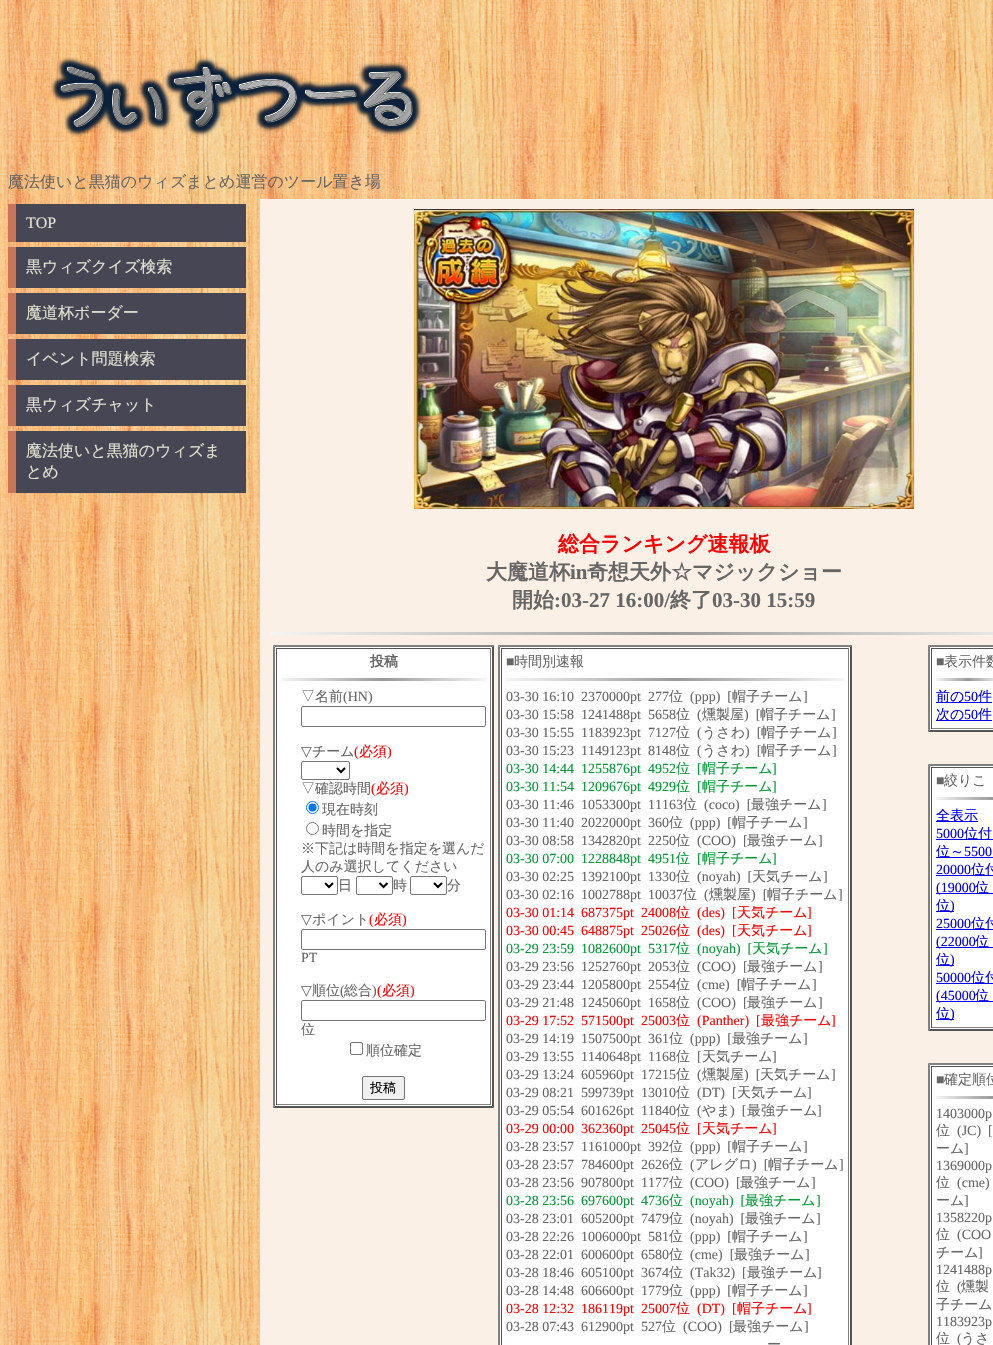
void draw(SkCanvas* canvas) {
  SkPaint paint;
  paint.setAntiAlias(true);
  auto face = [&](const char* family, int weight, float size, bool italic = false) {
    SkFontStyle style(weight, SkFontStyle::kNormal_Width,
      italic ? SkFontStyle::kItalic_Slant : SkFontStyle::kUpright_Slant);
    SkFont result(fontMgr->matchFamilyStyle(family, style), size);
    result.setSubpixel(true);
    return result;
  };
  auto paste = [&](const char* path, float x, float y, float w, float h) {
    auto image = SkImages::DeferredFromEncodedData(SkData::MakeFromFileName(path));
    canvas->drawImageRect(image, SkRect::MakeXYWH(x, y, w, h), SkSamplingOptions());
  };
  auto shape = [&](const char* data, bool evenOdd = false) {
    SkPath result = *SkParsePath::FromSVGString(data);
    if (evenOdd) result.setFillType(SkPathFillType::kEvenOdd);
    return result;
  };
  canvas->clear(0xffffffff);
  paste("img/1.png", 0, 0, 993, 1345);
  paste("img/2.png", 50, 57, 372, 80);
  {
    const struct { float x, y, w, h; SkColor color; } items[] = {
      {16, 204, 230, 38, 0xff474655},
      {8, 204, 8, 38, 0xffc97556},
      {16, 247, 230, 41, 0xff474655},
      {8, 247, 8, 41, 0xffc97556},
      {16, 293, 230, 41, 0xff474655},
      {8, 293, 8, 41, 0xffc97556},
      {16, 339, 230, 41, 0xff474655},
      {8, 339, 8, 41, 0xffc97556},
      {16, 385, 230, 41, 0xff474655},
      {8, 385, 8, 41, 0xffc97556},
      {16, 431, 230, 62, 0xff474655},
      {8, 431, 8, 62, 0xffc97556},
      {260, 199, 733, 1146, 0xfffaf0e6},
    };
    for (auto [x, y, w, h, color] : items) {
      paint.setColor(color);
      canvas->drawRect(SkRect::MakeXYWH(x, y, w, h), paint);
    }
  }
  paste("img/3.png", 414, 209, 500, 300);
  {
    const SkColor colors[] = {0xfff5f5f5, 0xff999999, 0xfff5f5f5};
    const float stops[] = {0, 0.5f, 1};
    const SkPoint ends[] = {{270, 634}, {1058, 634}};
    paint.setShader(SkGradientShader::MakeLinear(ends, colors, stops, 3, SkTileMode::kClamp));
    paint.setAlpha(255);
  }
  canvas->drawRect(SkRect::MakeXYWH(270, 632, 723, 3), paint);
  paint.setShader(nullptr);
  paint.setColor(0xffffffff);
  canvas->drawRect(SkRect::MakeXYWH(273, 645, 221, 463), paint);
  paint.setColor(0xff808080);
  canvas->drawPath(shape("M273 645H494L492 647H275Z"), paint);
  paint.setColor(0xff555555);
  canvas->drawPath(shape("M494 645V1108L492 1106V647Z"), paint);
  canvas->drawPath(shape("M494 1108H273L275 1106H492Z"), paint);
  paint.setColor(0xff808080);
  canvas->drawPath(shape("M273 1108V645L275 647V1106Z"), paint);
  {
    const struct { float x, y, w, h; SkColor color; } items[] = {
      {276, 648, 215, 1, 0xff555555},
      {490, 648, 1, 457, 0xff808080},
      {276, 1104, 215, 1, 0xff808080},
      {276, 648, 1, 457, 0xff555555},
    };
    for (auto [x, y, w, h, color] : items) {
      paint.setColor(color);
      canvas->drawRect(SkRect::MakeXYWH(x, y, w, h), paint);
    }
  }
  {
    const SkColor colors[] = {0xfff5f5f5, 0xff999999, 0xfff5f5f5};
    const float stops[] = {0, 0.5f, 1};
    const SkPoint ends[] = {{281, 680}, {486, 680}};
    paint.setShader(SkGradientShader::MakeLinear(ends, colors, stops, 3, SkTileMode::kClamp));
    paint.setAlpha(255);
  }
  canvas->drawRect(SkRect::MakeXYWH(281, 678, 205, 3), paint);
  paint.setStroke(true);
  paint.setStrokeWidth(1);
  paint.setShader(nullptr);
  paint.setColor(0xff767676);
  canvas->drawRoundRect(SkRect::MakeXYWH(301.5f, 706.5f, 184, 20), 1.5f, 1.5f, paint);
  canvas->drawRoundRect(SkRect::MakeXYWH(301.5f, 761.5f, 48, 18), 1.5f, 1.5f, paint);
  paint.setStrokeWidth(2);
  paint.setColor(0xff000000);
  canvas->drawPath(shape("M337 768L341 772L345 768"), paint);
  paint.setStrokeWidth(1);
  paint.setColor(0xff0075ff);
  canvas->drawCircle(312.5f, 807.5f, 6, paint);
  paint.setStroke(false);
  canvas->drawCircle(312.5f, 807.5f, 4, paint);
  paint.setStroke(true);
  paint.setColor(0xff767676);
  canvas->drawCircle(312.5f, 828.5f, 6, paint);
  canvas->drawRoundRect(SkRect::MakeXYWH(301.5f, 876.5f, 36, 18), 1.5f, 1.5f, paint);
  paint.setStrokeWidth(2);
  paint.setColor(0xff000000);
  canvas->drawPath(shape("M325 883L329 887L333 883"), paint);
  paint.setStrokeWidth(1);
  paint.setColor(0xff767676);
  canvas->drawRoundRect(SkRect::MakeXYWH(356.5f, 876.5f, 36, 18), 1.5f, 1.5f, paint);
  paint.setStrokeWidth(2);
  paint.setColor(0xff000000);
  canvas->drawPath(shape("M379.5 883L383.5 887L387.5 883"), paint);
  paint.setStrokeWidth(1);
  paint.setColor(0xff767676);
  canvas->drawRoundRect(SkRect::MakeXYWH(410.5f, 876.5f, 36, 18), 1.5f, 1.5f, paint);
  paint.setStrokeWidth(2);
  paint.setColor(0xff000000);
  canvas->drawPath(shape("M434 883L438 887L442 883"), paint);
  paint.setStrokeWidth(1);
  paint.setColor(0xff767676);
  canvas->drawRoundRect(SkRect::MakeXYWH(301.5f, 929.5f, 184, 20), 1.5f, 1.5f, paint);
  canvas->drawRoundRect(SkRect::MakeXYWH(301.5f, 1000.5f, 184, 20), 1.5f, 1.5f, paint);
  canvas->drawRoundRect(SkRect::MakeXYWH(350.5f, 1042.5f, 12, 12), 1.5f, 1.5f, paint);
  paint.setStroke(false);
  paint.setColor(0xffefefef);
  canvas->drawRoundRect(SkRect::MakeXYWH(362.5f, 1076.5f, 42, 23), 1.5f, 1.5f, paint);
  paint.setStroke(true);
  paint.setColor(0xff767676);
  canvas->drawRoundRect(SkRect::MakeXYWH(362.5f, 1076.5f, 42, 23), 1.5f, 1.5f, paint);
  paint.setStroke(false);
  paint.setColor(0xffffffff);
  canvas->drawRect(SkRect::MakeXYWH(498, 645, 354, 700), paint);
  paint.setColor(0xff808080);
  canvas->drawPath(shape("M498 645H852L850 647H500Z"), paint);
  paint.setColor(0xff555555);
  canvas->drawPath(shape("M852 645V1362L850 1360V647Z"), paint);
  paint.setColor(0xff808080);
  canvas->drawPath(shape("M498 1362V645L500 647V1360Z"), paint);
  {
    const struct { float x, y, w, h; SkColor color; } items[] = {
      {501, 648, 348, 1, 0xff555555},
      {848, 648, 1, 697, 0xff808080},
      {501, 648, 1, 697, 0xff555555},
    };
    for (auto [x, y, w, h, color] : items) {
      paint.setColor(color);
      canvas->drawRect(SkRect::MakeXYWH(x, y, w, h), paint);
    }
  }
  {
    const SkColor colors[] = {0xfff5f5f5, 0xff999999, 0xfff5f5f5};
    const float stops[] = {0, 0.5f, 1};
    const SkPoint ends[] = {{506, 680}, {844, 680}};
    paint.setShader(SkGradientShader::MakeLinear(ends, colors, stops, 3, SkTileMode::kClamp));
    paint.setAlpha(255);
  }
  canvas->drawRect(SkRect::MakeXYWH(506, 678, 338, 3), paint);
  paint.setShader(nullptr);
  paint.setColor(0xffffffff);
  canvas->drawRect(SkRect::MakeXYWH(928, 645, 65, 87), paint);
  paint.setColor(0xff808080);
  canvas->drawPath(shape("M928 645H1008L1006 647H930Z"), paint);
  paint.setColor(0xff555555);
  canvas->drawPath(shape("M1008 732H928L930 730H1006Z"), paint);
  paint.setColor(0xff808080);
  canvas->drawPath(shape("M928 732V645L930 647V730Z"), paint);
  {
    const struct { float x, y, w, h; SkColor color; } items[] = {
      {931, 648, 62, 1, 0xff555555},
      {931, 728, 62, 1, 0xff808080},
      {931, 648, 1, 81, 0xff555555},
    };
    for (auto [x, y, w, h, color] : items) {
      paint.setColor(color);
      canvas->drawRect(SkRect::MakeXYWH(x, y, w, h), paint);
    }
  }
  {
    const SkColor colors[] = {0xfff5f5f5, 0xff999999, 0xfff5f5f5};
    const float stops[] = {0, 0.5f, 1};
    const SkPoint ends[] = {{936, 680}, {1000, 680}};
    paint.setShader(SkGradientShader::MakeLinear(ends, colors, stops, 3, SkTileMode::kClamp));
    paint.setAlpha(255);
  }
  canvas->drawRect(SkRect::MakeXYWH(936, 678, 57, 3), paint);
  paint.setShader(nullptr);
  {
    const struct { float x, y, w, h; SkColor color; } items[] = {
      {936, 702, 56, 1, 0xff0000ee},
      {936, 720, 56, 1, 0xff0000ee},
      {928, 764, 65, 267, 0xffffffff},
    };
    for (auto [x, y, w, h, color] : items) {
      paint.setColor(color);
      canvas->drawRect(SkRect::MakeXYWH(x, y, w, h), paint);
    }
  }
  paint.setColor(0xff808080);
  canvas->drawPath(shape("M928 764H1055L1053 766H930Z"), paint);
  paint.setColor(0xff555555);
  canvas->drawPath(shape("M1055 1031H928L930 1029H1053Z"), paint);
  paint.setColor(0xff808080);
  canvas->drawPath(shape("M928 1031V764L930 766V1029Z"), paint);
  {
    const struct { float x, y, w, h; SkColor color; } items[] = {
      {931, 767, 62, 1, 0xff555555},
      {931, 1027, 62, 1, 0xff808080},
      {931, 767, 1, 261, 0xff555555},
    };
    for (auto [x, y, w, h, color] : items) {
      paint.setColor(color);
      canvas->drawRect(SkRect::MakeXYWH(x, y, w, h), paint);
    }
  }
  {
    const SkColor colors[] = {0xfff5f5f5, 0xff999999, 0xfff5f5f5};
    const float stops[] = {0, 0.5f, 1};
    const SkPoint ends[] = {{936, 799}, {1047, 799}};
    paint.setShader(SkGradientShader::MakeLinear(ends, colors, stops, 3, SkTileMode::kClamp));
    paint.setAlpha(255);
  }
  canvas->drawRect(SkRect::MakeXYWH(936, 797, 57, 3), paint);
  paint.setShader(nullptr);
  {
    const struct { float x, y, w, h; SkColor color; } items[] = {
      {936, 821, 42, 1, 0xff0000ee},
      {936, 839, 57, 1, 0xff0000ee},
      {936, 857, 57, 1, 0xff0000ee},
      {936, 875, 57, 1, 0xff0000ee},
      {936, 893, 57, 1, 0xff0000ee},
      {936, 911, 18, 1, 0xff0000ee},
      {936, 929, 57, 1, 0xff0000ee},
      {936, 947, 57, 1, 0xff0000ee},
      {936, 965, 18, 1, 0xff0000ee},
      {936, 983, 57, 1, 0xff0000ee},
      {936, 1001, 57, 1, 0xff0000ee},
      {936, 1019, 18, 1, 0xff0000ee},
      {928, 1063, 65, 282, 0xffffffff},
    };
    for (auto [x, y, w, h, color] : items) {
      paint.setColor(color);
      canvas->drawRect(SkRect::MakeXYWH(x, y, w, h), paint);
    }
  }
  paint.setColor(0xff808080);
  canvas->drawPath(shape("M928 1063H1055L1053 1065H930Z"), paint);
  canvas->drawPath(shape("M928 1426V1063L930 1065V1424Z"), paint);
  paint.setColor(0xff555555);
  canvas->drawRect(SkRect::MakeXYWH(931, 1066, 62, 1), paint);
  canvas->drawRect(SkRect::MakeXYWH(931, 1066, 1, 279), paint);
  {
    const SkColor colors[] = {0xfff5f5f5, 0xff999999, 0xfff5f5f5};
    const float stops[] = {0, 0.5f, 1};
    const SkPoint ends[] = {{936, 1098}, {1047, 1098}};
    paint.setShader(SkGradientShader::MakeLinear(ends, colors, stops, 3, SkTileMode::kClamp));
    paint.setAlpha(255);
  }
  canvas->drawRect(SkRect::MakeXYWH(936, 1096, 57, 3), paint);
  auto f0 = face("WenQuanYi Zen Hei", 500, 16);
  paint.setShader(nullptr);
  paint.setColor(0xff666666);
  canvas->drawString("魔法使いと黒猫のウィズまとめ運営のツール置き場", 8, 187, f0, paint);
  auto f1 = face("Liberation Serif", 400, 16);
  paint.setColor(0xffe1e2cf);
  canvas->drawString("TOP", 26, 228, f1, paint);
  {
    const struct { const char* s; float x, y; } items[] = {
      {"黒ウィズクイズ検索", 26, 272},
      {"魔道杯ボーダー", 26, 318},
      {"イベント問題検索", 26, 364},
      {"黒ウィズチャット", 26, 410},
      {"魔法使いと黒猫のウィズま", 26, 456},
      {"とめ", 26, 477},
    };
    for (auto [s, x, y] : items) {
      canvas->drawString(s, x, y, f0, paint);
    }
  }
  auto f2 = face("WenQuanYi Zen Hei", 700, 21);
  paint.setColor(0xffff0000);
  canvas->drawString("総合ランキング速報板", 558, 551, f2, paint);
  paint.setColor(0xff666666);
  canvas->drawString("大魔道杯", 486, 579, f2, paint);
  auto f3 = face("Liberation Serif", 700, 21);
  canvas->drawString("in", 570, 579, f3, paint);
  canvas->drawString("奇想天外☆マジックショー", 587, 579, f2, paint);
  canvas->drawString("開始", 512, 607, f2, paint);
  canvas->drawString(":03-27 16:00/", 554, 607, f3, paint);
  canvas->drawString("終了", 670, 607, f2, paint);
  canvas->drawString("03-30 15:59", 712, 607, f3, paint);
  auto f4 = face("WenQuanYi Zen Hei", 700, 14);
  canvas->drawString("投稿", 370, 666, f4, paint);
  auto f5 = face("WenQuanYi Zen Hei", 500, 14);
  canvas->drawString("▽名前", 301, 701, f5, paint);
  auto f6 = face("Liberation Serif", 400, 14);
  canvas->drawString("(HN)", 343, 701, f6, paint);
  auto f7 = face("DejaVu Sans", 400, 14);
  canvas->drawString("▽", 301, 756, f7, paint);
  canvas->drawString("チーム", 312, 756, f5, paint);
  paint.setColor(0xffff0000);
  canvas->drawString("(", 354, 756, f6, paint);
  canvas->drawString("必須", 359, 756, f5, paint);
  canvas->drawString(")", 387, 756, f6, paint);
  paint.setColor(0xff666666);
  canvas->drawString("▽確認時間", 301, 793, f5, paint);
  paint.setColor(0xffff0000);
  canvas->drawString("(", 371, 793, f6, paint);
  canvas->drawString("必須", 376, 793, f5, paint);
  canvas->drawString(")", 404, 793, f6, paint);
  paint.setColor(0xff666666);
  {
    const struct { const char* s; float x, y; } items[] = {
      {"現在時刻", 322, 814},
      {"時間を指定", 322, 835},
      {"※下記は時間を指定を選んだ", 301, 853},
      {"人のみ選択してください", 301, 871},
      {"日", 338, 890},
      {"時", 393, 890},
      {"分", 447, 890},
    };
    for (auto [s, x, y] : items) {
      canvas->drawString(s, x, y, f5, paint);
    }
  }
  canvas->drawString("▽", 301, 924, f7, paint);
  canvas->drawString("ポイント", 312, 924, f5, paint);
  paint.setColor(0xffff0000);
  canvas->drawString("(", 369, 924, f6, paint);
  canvas->drawString("必須", 374, 924, f5, paint);
  canvas->drawString(")", 402, 924, f6, paint);
  paint.setColor(0xff666666);
  canvas->drawString("PT", 301, 962, f6, paint);
  canvas->drawString("▽", 301, 995, f7, paint);
  canvas->drawString("順位", 312, 995, f5, paint);
  canvas->drawString("(", 340, 995, f6, paint);
  canvas->drawString("総合", 344, 995, f5, paint);
  canvas->drawString(")", 372, 995, f6, paint);
  paint.setColor(0xffff0000);
  canvas->drawString("(", 377, 995, f6, paint);
  canvas->drawString("必須", 382, 995, f5, paint);
  canvas->drawString(")", 410, 995, f6, paint);
  paint.setColor(0xff666666);
  canvas->drawString("位", 301, 1034, f5, paint);
  canvas->drawString("順位確定", 366, 1055, f5, paint);
  auto f8 = face("WenQuanYi Zen Hei", 500, 13);
  paint.setColor(0xff000000);
  canvas->drawString("投稿", 370, 1092, f8, paint);
  paint.setColor(0xff666666);
  canvas->drawString("■", 506, 666, f6, paint);
  canvas->drawString("時間別速報", 514, 666, f5, paint);
  canvas->drawString("03-30 16:10  2370000pt  277", 506, 701, f6, paint);
  canvas->drawString("位", 669, 701, f5, paint);
  canvas->drawString("(ppp)  [", 690, 701, f6, paint);
  canvas->drawString("帽子チーム", 732, 701, f5, paint);
  canvas->drawString("]", 803, 701, f6, paint);
  canvas->drawString("03-30 15:58  1241488pt  5658", 506, 719, f6, paint);
  canvas->drawString("位", 676, 719, f5, paint);
  canvas->drawString("(", 697, 719, f6, paint);
  canvas->drawString("燻製屋", 702, 719, f5, paint);
  canvas->drawString(")  [", 744, 719, f6, paint);
  canvas->drawString("帽子チーム", 760, 719, f5, paint);
  canvas->drawString("]", 831, 719, f6, paint);
  canvas->drawString("03-30 15:55  1183923pt  7127", 506, 737, f6, paint);
  canvas->drawString("位", 676, 737, f5, paint);
  canvas->drawString("(", 697, 737, f6, paint);
  canvas->drawString("うさわ", 702, 737, f5, paint);
  canvas->drawString(")  [", 745, 737, f6, paint);
  canvas->drawString("帽子チーム", 761, 737, f5, paint);
  canvas->drawString("]", 832, 737, f6, paint);
  canvas->drawString("03-30 15:23  1149123pt  8148", 506, 755, f6, paint);
  canvas->drawString("位", 676, 755, f5, paint);
  canvas->drawString("(", 697, 755, f6, paint);
  canvas->drawString("うさわ", 702, 755, f5, paint);
  canvas->drawString(")  [", 745, 755, f6, paint);
  canvas->drawString("帽子チーム", 761, 755, f5, paint);
  canvas->drawString("]", 832, 755, f6, paint);
  paint.setColor(0xff009933);
  canvas->drawString("03-30 14:44  1255876pt  4952", 506, 773, f6, paint);
  canvas->drawString("位", 676, 773, f5, paint);
  canvas->drawString("[", 697, 773, f6, paint);
  canvas->drawString("帽子チーム", 702, 773, f5, paint);
  canvas->drawString("]", 772, 773, f6, paint);
  canvas->drawString("03-30 11:54  1209676pt  4929", 506, 791, f6, paint);
  canvas->drawString("位", 676, 791, f5, paint);
  canvas->drawString("[", 697, 791, f6, paint);
  canvas->drawString("帽子チーム", 702, 791, f5, paint);
  canvas->drawString("]", 772, 791, f6, paint);
  paint.setColor(0xff666666);
  canvas->drawString("03-30 11:46  1053300pt  11163", 506, 809, f6, paint);
  canvas->drawString("位", 683, 809, f5, paint);
  canvas->drawString("(coco)  [", 704, 809, f6, paint);
  canvas->drawString("最強チーム", 751, 809, f5, paint);
  canvas->drawString("]", 822, 809, f6, paint);
  canvas->drawString("03-30 11:40  2022000pt  360", 506, 827, f6, paint);
  canvas->drawString("位", 669, 827, f5, paint);
  canvas->drawString("(ppp)  [", 690, 827, f6, paint);
  canvas->drawString("帽子チーム", 732, 827, f5, paint);
  canvas->drawString("]", 803, 827, f6, paint);
  canvas->drawString("03-30 08:58  1342820pt  2250", 506, 845, f6, paint);
  canvas->drawString("位", 676, 845, f5, paint);
  canvas->drawString("(COO)  [", 697, 845, f6, paint);
  canvas->drawString("最強チーム", 747, 845, f5, paint);
  canvas->drawString("]", 818, 845, f6, paint);
  paint.setColor(0xff009933);
  canvas->drawString("03-30 07:00  1228848pt  4951", 506, 863, f6, paint);
  canvas->drawString("位", 676, 863, f5, paint);
  canvas->drawString("[", 697, 863, f6, paint);
  canvas->drawString("帽子チーム", 702, 863, f5, paint);
  canvas->drawString("]", 772, 863, f6, paint);
  paint.setColor(0xff666666);
  canvas->drawString("03-30 02:25  1392100pt  1330", 506, 881, f6, paint);
  canvas->drawString("位", 676, 881, f5, paint);
  canvas->drawString("(noyah)  [", 697, 881, f6, paint);
  canvas->drawString("天気チーム", 752, 881, f5, paint);
  canvas->drawString("]", 823, 881, f6, paint);
  canvas->drawString("03-30 02:16  1002788pt  10037", 506, 899, f6, paint);
  canvas->drawString("位", 683, 899, f5, paint);
  canvas->drawString("(", 704, 899, f6, paint);
  canvas->drawString("燻製屋", 709, 899, f5, paint);
  canvas->drawString(")  [", 751, 899, f6, paint);
  canvas->drawString("帽子チーム", 767, 899, f5, paint);
  canvas->drawString("]", 838, 899, f6, paint);
  paint.setColor(0xffff0000);
  canvas->drawString("03-30 01:14  687375pt  24008", 506, 917, f6, paint);
  canvas->drawString("位", 676, 917, f5, paint);
  canvas->drawString("(des)  [", 697, 917, f6, paint);
  canvas->drawString("天気チーム", 737, 917, f5, paint);
  canvas->drawString("]", 807, 917, f6, paint);
  canvas->drawString("03-30 00:45  648875pt  25026", 506, 935, f6, paint);
  canvas->drawString("位", 676, 935, f5, paint);
  canvas->drawString("(des)  [", 697, 935, f6, paint);
  canvas->drawString("天気チーム", 737, 935, f5, paint);
  canvas->drawString("]", 807, 935, f6, paint);
  paint.setColor(0xff009933);
  canvas->drawString("03-29 23:59  1082600pt  5317", 506, 953, f6, paint);
  canvas->drawString("位", 676, 953, f5, paint);
  canvas->drawString("(noyah)  [", 697, 953, f6, paint);
  canvas->drawString("天気チーム", 752, 953, f5, paint);
  canvas->drawString("]", 823, 953, f6, paint);
  paint.setColor(0xff666666);
  canvas->drawString("03-29 23:56  1252760pt  2053", 506, 971, f6, paint);
  canvas->drawString("位", 676, 971, f5, paint);
  canvas->drawString("(COO)  [", 697, 971, f6, paint);
  canvas->drawString("最強チーム", 747, 971, f5, paint);
  canvas->drawString("]", 818, 971, f6, paint);
  canvas->drawString("03-29 23:44  1205800pt  2554", 506, 989, f6, paint);
  canvas->drawString("位", 676, 989, f5, paint);
  canvas->drawString("(cme)  [", 697, 989, f6, paint);
  canvas->drawString("帽子チーム", 741, 989, f5, paint);
  canvas->drawString("]", 812, 989, f6, paint);
  canvas->drawString("03-29 21:48  1245060pt  1658", 506, 1007, f6, paint);
  canvas->drawString("位", 676, 1007, f5, paint);
  canvas->drawString("(COO)  [", 697, 1007, f6, paint);
  canvas->drawString("最強チーム", 747, 1007, f5, paint);
  canvas->drawString("]", 818, 1007, f6, paint);
  paint.setColor(0xffff0000);
  canvas->drawString("03-29 17:52  571500pt  25003", 506, 1025, f6, paint);
  canvas->drawString("位", 676, 1025, f5, paint);
  canvas->drawString("(Panther)  [", 697, 1025, f6, paint);
  canvas->drawString("最強チーム", 761, 1025, f5, paint);
  canvas->drawString("]", 831, 1025, f6, paint);
  paint.setColor(0xff666666);
  canvas->drawString("03-29 14:19  1507500pt  361", 506, 1043, f6, paint);
  canvas->drawString("位", 669, 1043, f5, paint);
  canvas->drawString("(ppp)  [", 690, 1043, f6, paint);
  canvas->drawString("最強チーム", 732, 1043, f5, paint);
  canvas->drawString("]", 803, 1043, f6, paint);
  canvas->drawString("03-29 13:55  1140648pt  1168", 506, 1061, f6, paint);
  canvas->drawString("位", 676, 1061, f5, paint);
  canvas->drawString("[", 697, 1061, f6, paint);
  canvas->drawString("天気チーム", 702, 1061, f5, paint);
  canvas->drawString("]", 772, 1061, f6, paint);
  canvas->drawString("03-29 13:24  605960pt  17215", 506, 1079, f6, paint);
  canvas->drawString("位", 676, 1079, f5, paint);
  canvas->drawString("(", 697, 1079, f6, paint);
  canvas->drawString("燻製屋", 702, 1079, f5, paint);
  canvas->drawString(")  [", 744, 1079, f6, paint);
  canvas->drawString("天気チーム", 760, 1079, f5, paint);
  canvas->drawString("]", 831, 1079, f6, paint);
  canvas->drawString("03-29 08:21  599739pt  13010", 506, 1097, f6, paint);
  canvas->drawString("位", 676, 1097, f5, paint);
  canvas->drawString("(DT)  [", 697, 1097, f6, paint);
  canvas->drawString("天気チーム", 737, 1097, f5, paint);
  canvas->drawString("]", 807, 1097, f6, paint);
  canvas->drawString("03-29 05:54  601626pt  11840", 506, 1115, f6, paint);
  canvas->drawString("位", 676, 1115, f5, paint);
  canvas->drawString("(", 697, 1115, f6, paint);
  canvas->drawString("やま", 702, 1115, f5, paint);
  canvas->drawString(")  [", 730, 1115, f6, paint);
  canvas->drawString("最強チーム", 747, 1115, f5, paint);
  canvas->drawString("]", 817, 1115, f6, paint);
  paint.setColor(0xffff0000);
  canvas->drawString("03-29 00:00  362360pt  25045", 506, 1133, f6, paint);
  canvas->drawString("位", 676, 1133, f5, paint);
  canvas->drawString("[", 697, 1133, f6, paint);
  canvas->drawString("天気チーム", 702, 1133, f5, paint);
  canvas->drawString("]", 772, 1133, f6, paint);
  paint.setColor(0xff666666);
  canvas->drawString("03-28 23:57  1161000pt  392", 506, 1151, f6, paint);
  canvas->drawString("位", 669, 1151, f5, paint);
  canvas->drawString("(ppp)  [", 690, 1151, f6, paint);
  canvas->drawString("帽子チーム", 732, 1151, f5, paint);
  canvas->drawString("]", 803, 1151, f6, paint);
  canvas->drawString("03-28 23:57  784600pt  2626", 506, 1169, f6, paint);
  canvas->drawString("位", 669, 1169, f5, paint);
  canvas->drawString("(", 690, 1169, f6, paint);
  canvas->drawString("アレグロ", 695, 1169, f5, paint);
  canvas->drawString(")  [", 752, 1169, f6, paint);
  canvas->drawString("帽子チーム", 768, 1169, f5, paint);
  canvas->drawString("]", 839, 1169, f6, paint);
  canvas->drawString("03-28 23:56  907800pt  1177", 506, 1187, f6, paint);
  canvas->drawString("位", 669, 1187, f5, paint);
  canvas->drawString("(COO)  [", 690, 1187, f6, paint);
  canvas->drawString("最強チーム", 740, 1187, f5, paint);
  canvas->drawString("]", 811, 1187, f6, paint);
  paint.setColor(0xff009933);
  canvas->drawString("03-28 23:56  697600pt  4736", 506, 1205, f6, paint);
  canvas->drawString("位", 669, 1205, f5, paint);
  canvas->drawString("(noyah)  [", 690, 1205, f6, paint);
  canvas->drawString("最強チーム", 745, 1205, f5, paint);
  canvas->drawString("]", 816, 1205, f6, paint);
  paint.setColor(0xff666666);
  canvas->drawString("03-28 23:01  605200pt  7479", 506, 1223, f6, paint);
  canvas->drawString("位", 669, 1223, f5, paint);
  canvas->drawString("(noyah)  [", 690, 1223, f6, paint);
  canvas->drawString("最強チーム", 745, 1223, f5, paint);
  canvas->drawString("]", 816, 1223, f6, paint);
  canvas->drawString("03-28 22:26  1006000pt  581", 506, 1241, f6, paint);
  canvas->drawString("位", 669, 1241, f5, paint);
  canvas->drawString("(ppp)  [", 690, 1241, f6, paint);
  canvas->drawString("帽子チーム", 732, 1241, f5, paint);
  canvas->drawString("]", 803, 1241, f6, paint);
  canvas->drawString("03-28 22:01  600600pt  6580", 506, 1259, f6, paint);
  canvas->drawString("位", 669, 1259, f5, paint);
  canvas->drawString("(cme)  [", 690, 1259, f6, paint);
  canvas->drawString("最強チーム", 734, 1259, f5, paint);
  canvas->drawString("]", 805, 1259, f6, paint);
  canvas->drawString("03-28 18:46  605100pt  3674", 506, 1277, f6, paint);
  canvas->drawString("位", 669, 1277, f5, paint);
  canvas->drawString("(Tak32)  [", 690, 1277, f6, paint);
  canvas->drawString("最強チーム", 747, 1277, f5, paint);
  canvas->drawString("]", 817, 1277, f6, paint);
  canvas->drawString("03-28 14:48  606600pt  1779", 506, 1295, f6, paint);
  canvas->drawString("位", 669, 1295, f5, paint);
  canvas->drawString("(ppp)  [", 690, 1295, f6, paint);
  canvas->drawString("帽子チーム", 732, 1295, f5, paint);
  canvas->drawString("]", 803, 1295, f6, paint);
  paint.setColor(0xffff0000);
  canvas->drawString("03-28 12:32  186119pt  25007", 506, 1313, f6, paint);
  canvas->drawString("位", 676, 1313, f5, paint);
  canvas->drawString("(DT)  [", 697, 1313, f6, paint);
  canvas->drawString("帽子チーム", 737, 1313, f5, paint);
  canvas->drawString("]", 807, 1313, f6, paint);
  paint.setColor(0xff666666);
  canvas->drawString("03-28 07:43  612900pt  527", 506, 1331, f6, paint);
  canvas->drawString("位", 662, 1331, f5, paint);
  canvas->drawString("(COO)  [", 683, 1331, f6, paint);
  canvas->drawString("最強チーム", 733, 1331, f5, paint);
  canvas->drawString("]", 804, 1331, f6, paint);
  canvas->drawString("ー", 767, 1349, f5, paint);
  canvas->drawString("■", 936, 666, f6, paint);
  canvas->drawString("表示件数", 944, 666, f5, paint);
  paint.setColor(0xff0000ee);
  canvas->drawString("前の", 936, 701, f5, paint);
  canvas->drawString("50", 964, 701, f6, paint);
  canvas->drawString("件", 978, 701, f5, paint);
  canvas->drawString("次の", 936, 719, f5, paint);
  canvas->drawString("50", 964, 719, f6, paint);
  canvas->drawString("件", 978, 719, f5, paint);
  paint.setColor(0xff666666);
  canvas->drawString("■", 936, 785, f6, paint);
  canvas->drawString("絞りこ", 944, 785, f5, paint);
  paint.setColor(0xff0000ee);
  canvas->drawString("全表示", 936, 820, f5, paint);
  canvas->drawString("5000", 936, 838, f6, paint);
  canvas->drawString("位付", 964, 838, f5, paint);
  canvas->drawString("位～", 936, 856, f5, paint);
  canvas->drawString("5500", 964, 856, f6, paint);
  canvas->drawString("20000", 936, 874, f6, paint);
  canvas->drawString("位付", 971, 874, f5, paint);
  canvas->drawString("(19000", 936, 892, f6, paint);
  canvas->drawString("位", 975, 892, f5, paint);
  canvas->drawString("位", 936, 910, f5, paint);
  canvas->drawString(")", 950, 910, f6, paint);
  canvas->drawString("25000", 936, 928, f6, paint);
  canvas->drawString("位付", 971, 928, f5, paint);
  canvas->drawString("(22000", 936, 946, f6, paint);
  canvas->drawString("位", 975, 946, f5, paint);
  canvas->drawString("位", 936, 964, f5, paint);
  canvas->drawString(")", 950, 964, f6, paint);
  canvas->drawString("50000", 936, 982, f6, paint);
  canvas->drawString("位付", 971, 982, f5, paint);
  canvas->drawString("(45000", 936, 1000, f6, paint);
  canvas->drawString("位", 975, 1000, f5, paint);
  canvas->drawString("位", 936, 1018, f5, paint);
  canvas->drawString(")", 950, 1018, f6, paint);
  paint.setColor(0xff666666);
  canvas->drawString("■", 936, 1084, f6, paint);
  canvas->drawString("確定順位", 944, 1084, f5, paint);
  canvas->drawString("1403000p", 936, 1118, f6, paint);
  canvas->drawString("位", 936, 1135, f5, paint);
  canvas->drawString("(JC)  [", 957, 1135, f6, paint);
  canvas->drawString("ーム", 936, 1153, f5, paint);
  canvas->drawString("]", 964, 1153, f6, paint);
  canvas->drawString("1369000p", 936, 1170, f6, paint);
  canvas->drawString("位", 936, 1187, f5, paint);
  canvas->drawString("(cme)", 957, 1187, f6, paint);
  canvas->drawString("ーム", 936, 1205, f5, paint);
  canvas->drawString("]", 964, 1205, f6, paint);
  canvas->drawString("1358220p", 936, 1222, f6, paint);
  canvas->drawString("位", 936, 1239, f5, paint);
  canvas->drawString("(COO", 957, 1239, f6, paint);
  canvas->drawString("チーム", 936, 1257, f5, paint);
  canvas->drawString("]", 978, 1257, f6, paint);
  canvas->drawString("1241488p", 936, 1274, f6, paint);
  canvas->drawString("位", 936, 1291, f5, paint);
  canvas->drawString("(", 957, 1291, f6, paint);
  canvas->drawString("燻製", 961, 1291, f5, paint);
  canvas->drawString("子チーム", 936, 1309, f5, paint);
  canvas->drawString("1183923p", 936, 1326, f6, paint);
  canvas->drawString("位", 936, 1343, f5, paint);
  canvas->drawString("(", 957, 1343, f6, paint);
  canvas->drawString("うさ", 961, 1343, f5, paint);
}
